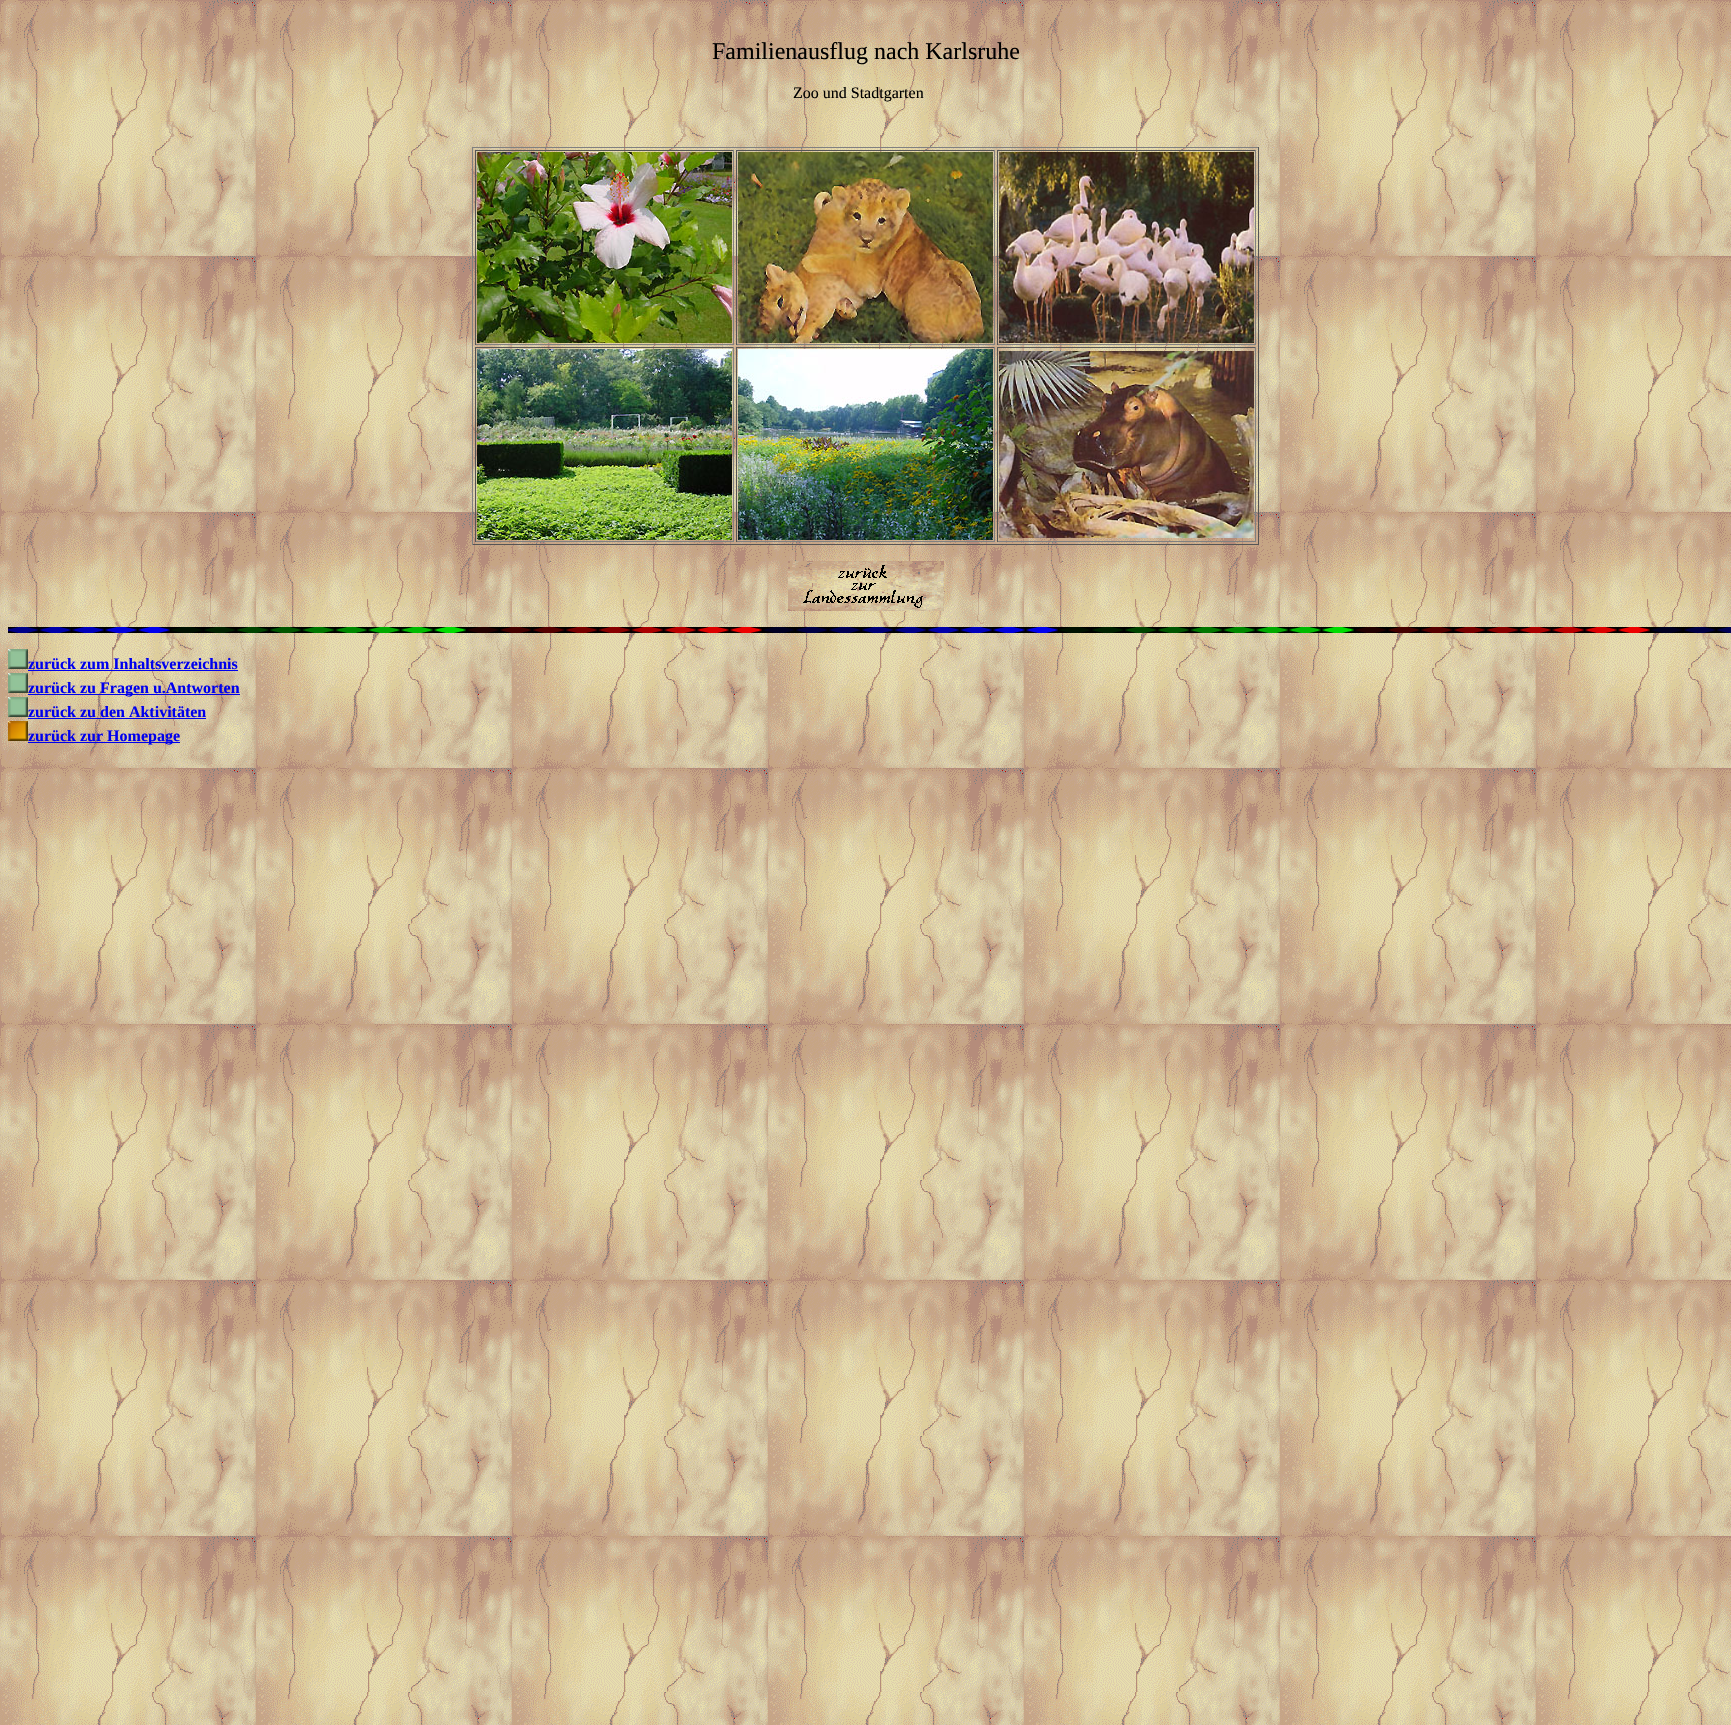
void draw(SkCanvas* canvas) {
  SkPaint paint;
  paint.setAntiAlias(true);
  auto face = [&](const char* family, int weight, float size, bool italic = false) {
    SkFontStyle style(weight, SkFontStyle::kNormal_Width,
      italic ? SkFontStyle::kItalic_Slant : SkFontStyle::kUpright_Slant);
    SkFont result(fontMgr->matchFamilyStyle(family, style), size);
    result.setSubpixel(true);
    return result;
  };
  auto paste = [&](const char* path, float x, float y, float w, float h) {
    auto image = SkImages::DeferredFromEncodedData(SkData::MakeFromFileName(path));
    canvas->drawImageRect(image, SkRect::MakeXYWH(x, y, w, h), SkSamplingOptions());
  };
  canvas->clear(0xffffffff);
  paste("img/1.png", 0, 0, 1731, 1725);
  {
    const struct { float x, y, w, h; SkColor color; } items[] = {
      {472, 147, 787, 1, 0xff808080},
      {1258, 147, 1, 398, 0xff555555},
      {472, 544, 787, 1, 0xff555555},
      {472, 147, 1, 398, 0xff808080},
      {475, 150, 259, 1, 0xff555555},
      {733, 150, 1, 195, 0xff808080},
      {475, 344, 259, 1, 0xff808080},
      {475, 150, 1, 195, 0xff555555},
    };
    for (auto [x, y, w, h, color] : items) {
      paint.setColor(color);
      canvas->drawRect(SkRect::MakeXYWH(x, y, w, h), paint);
    }
  }
  paste("img/2.png", 477, 152, 255, 191);
  {
    const struct { float x, y, w, h; SkColor color; } items[] = {
      {736, 150, 259, 1, 0xff555555},
      {994, 150, 1, 195, 0xff808080},
      {736, 344, 259, 1, 0xff808080},
      {736, 150, 1, 195, 0xff555555},
    };
    for (auto [x, y, w, h, color] : items) {
      paint.setColor(color);
      canvas->drawRect(SkRect::MakeXYWH(x, y, w, h), paint);
    }
  }
  paste("img/3.png", 738, 152, 255, 191);
  {
    const struct { float x, y, w, h; SkColor color; } items[] = {
      {997, 150, 259, 1, 0xff555555},
      {1255, 150, 1, 195, 0xff808080},
      {997, 344, 259, 1, 0xff808080},
      {997, 150, 1, 195, 0xff555555},
    };
    for (auto [x, y, w, h, color] : items) {
      paint.setColor(color);
      canvas->drawRect(SkRect::MakeXYWH(x, y, w, h), paint);
    }
  }
  paste("img/4.png", 999, 152, 255, 191);
  {
    const struct { float x, y, w, h; SkColor color; } items[] = {
      {475, 347, 259, 1, 0xff555555},
      {733, 347, 1, 195, 0xff808080},
      {475, 541, 259, 1, 0xff808080},
      {475, 347, 1, 195, 0xff555555},
    };
    for (auto [x, y, w, h, color] : items) {
      paint.setColor(color);
      canvas->drawRect(SkRect::MakeXYWH(x, y, w, h), paint);
    }
  }
  paste("img/5.png", 477, 349, 255, 191);
  {
    const struct { float x, y, w, h; SkColor color; } items[] = {
      {736, 347, 259, 1, 0xff555555},
      {994, 347, 1, 195, 0xff808080},
      {736, 541, 259, 1, 0xff808080},
      {736, 347, 1, 195, 0xff555555},
    };
    for (auto [x, y, w, h, color] : items) {
      paint.setColor(color);
      canvas->drawRect(SkRect::MakeXYWH(x, y, w, h), paint);
    }
  }
  paste("img/6.png", 738, 349, 255, 191);
  {
    const struct { float x, y, w, h; SkColor color; } items[] = {
      {997, 347, 259, 1, 0xff555555},
      {1255, 347, 1, 195, 0xff808080},
      {997, 541, 259, 1, 0xff808080},
      {997, 347, 1, 195, 0xff555555},
    };
    for (auto [x, y, w, h, color] : items) {
      paint.setColor(color);
      canvas->drawRect(SkRect::MakeXYWH(x, y, w, h), paint);
    }
  }
  paste("img/7.png", 999, 351, 255, 187);
  paste("img/8.png", 788, 561, 156, 50);
  paste("img/9.png", 8, 627, 1723, 6);
  paste("img/10.png", 8, 649, 20, 20);
  paint.setColor(0xff0000ee);
  canvas->drawRect(SkRect::MakeXYWH(28, 670, 210, 1), paint);
  paste("img/10.png", 8, 673, 20, 20);
  canvas->drawRect(SkRect::MakeXYWH(28, 694, 212, 1), paint);
  paste("img/10.png", 8, 697, 20, 20);
  canvas->drawRect(SkRect::MakeXYWH(28, 718, 178, 1), paint);
  paste("img/11.png", 8, 721, 20, 20);
  canvas->drawRect(SkRect::MakeXYWH(28, 742, 152, 1), paint);
  auto f0 = face("Liberation Serif", 400, 24);
  paint.setColor(0xff000000);
  canvas->drawString("Familienausflug nach Karlsruhe", 712, 59, f0, paint);
  auto f1 = face("Liberation Serif", 400, 16);
  canvas->drawString("Zoo und Stadtgarten", 793, 98, f1, paint);
  auto f2 = face("Liberation Serif", 700, 16);
  paint.setColor(0xff0000ee);
  {
    const struct { const char* s; float x, y; } items[] = {
      {"zurück zum Inhaltsverzeichnis", 28, 669},
      {"zurück zu Fragen u.Antworten", 28, 693},
      {"zurück zu den Aktivitäten", 28, 717},
      {"zurück zur Homepage", 28, 741},
    };
    for (auto [s, x, y] : items) {
      canvas->drawString(s, x, y, f2, paint);
    }
  }
}
